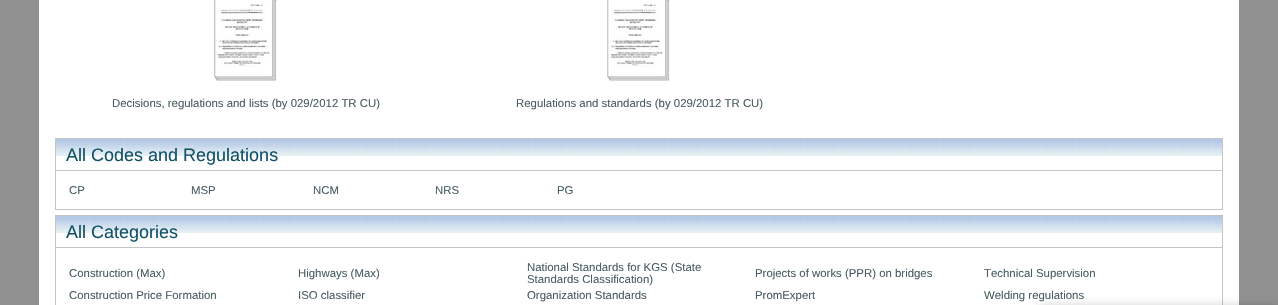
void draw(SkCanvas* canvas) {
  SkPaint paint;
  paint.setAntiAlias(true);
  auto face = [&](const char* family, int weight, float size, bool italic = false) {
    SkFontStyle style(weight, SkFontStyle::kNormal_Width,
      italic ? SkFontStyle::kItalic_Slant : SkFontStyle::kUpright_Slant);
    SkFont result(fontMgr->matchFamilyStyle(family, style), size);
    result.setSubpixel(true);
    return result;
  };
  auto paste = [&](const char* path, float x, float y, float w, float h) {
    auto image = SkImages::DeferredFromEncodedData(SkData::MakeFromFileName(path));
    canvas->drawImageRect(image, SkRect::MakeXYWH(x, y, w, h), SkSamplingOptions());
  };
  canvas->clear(0xff919191);
  paint.setColor(0xffffffff);
  canvas->drawRect(SkRect::MakeXYWH(39, 0, 1200, 305), paint);
  paste("img/1.png", 214, 0, 63, 82);
  paste("img/1.png", 607, 0, 63, 82);
  paste("img/2.png", 56, 139, 1166, 17);
  paint.setStroke(true);
  paint.setStrokeWidth(1);
  paint.setColor(0xffc3c6c0);
  canvas->drawRect(SkRect::MakeXYWH(55.5f, 138.5f, 1167, 32), paint);
  paint.setStroke(false);
  {
    const struct { float x, y, w, h; SkColor color; } items[] = {
      {1222, 171, 1, 39, 0xffc3c6c0},
      {55, 209, 1168, 1, 0xffc3c6c0},
      {55, 171, 1, 39, 0xffc3c6c0},
    };
    for (auto [x, y, w, h, color] : items) {
      paint.setColor(color);
      canvas->drawRect(SkRect::MakeXYWH(x, y, w, h), paint);
    }
  }
  paste("img/2.png", 56, 216, 1166, 17);
  paint.setStroke(true);
  canvas->drawRect(SkRect::MakeXYWH(55.5f, 215.5f, 1167, 32), paint);
  paint.setStroke(false);
  canvas->drawRect(SkRect::MakeXYWH(1222, 248, 1, 57), paint);
  canvas->drawRect(SkRect::MakeXYWH(55, 248, 1, 57), paint);
  paint.setColor(0x33000000);
  paint.setMaskFilter(SkMaskFilter::MakeBlur(kNormal_SkBlurStyle, 5));
  canvas->drawRect(SkRect::MakeXYWH(1040, 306, 237, 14), paint);
  paint.setMaskFilter(nullptr);
  auto f0 = face("Liberation Sans", 400, 11.4f);
  paint.setColor(0xff485d63);
  canvas->drawString("Decisions, regulations and lists (by 029/2012 TR CU)", 112, 107, f0, paint);
  canvas->drawString("Regulations and standards (by 029/2012 TR CU)", 516, 107, f0, paint);
  auto f1 = face("Liberation Sans", 400, 18);
  paint.setColor(0xff135369);
  canvas->drawString("All Codes and Regulations", 66, 161, f1, paint);
  paint.setColor(0xff485d63);
  {
    const struct { const char* s; float x, y; } items[] = {
      {"CP", 69, 194},
      {"MSP", 191, 194},
      {"NCM", 313, 194},
      {"NRS", 435, 194},
      {"PG", 557, 194},
    };
    for (auto [s, x, y] : items) {
      canvas->drawString(s, x, y, f0, paint);
    }
  }
  paint.setColor(0xff135369);
  canvas->drawString("All Categories", 66, 238, f1, paint);
  paint.setColor(0xff485d63);
  {
    const struct { const char* s; float x, y; } items[] = {
      {"Construction (Max)", 69, 277},
      {"Highways (Max)", 298, 277},
      {"National Standards for KGS (State", 527, 271},
      {"Standards Classification)", 527, 283},
      {"Projects of works (PPR) on bridges", 755, 277},
      {"Technical Supervision", 984, 277},
      {"Construction Price Formation", 69, 299},
      {"ISO classifier", 298, 299},
      {"Organization Standards", 527, 299},
      {"PromExpert", 755, 299},
      {"Welding regulations", 984, 299},
    };
    for (auto [s, x, y] : items) {
      canvas->drawString(s, x, y, f0, paint);
    }
  }
}
